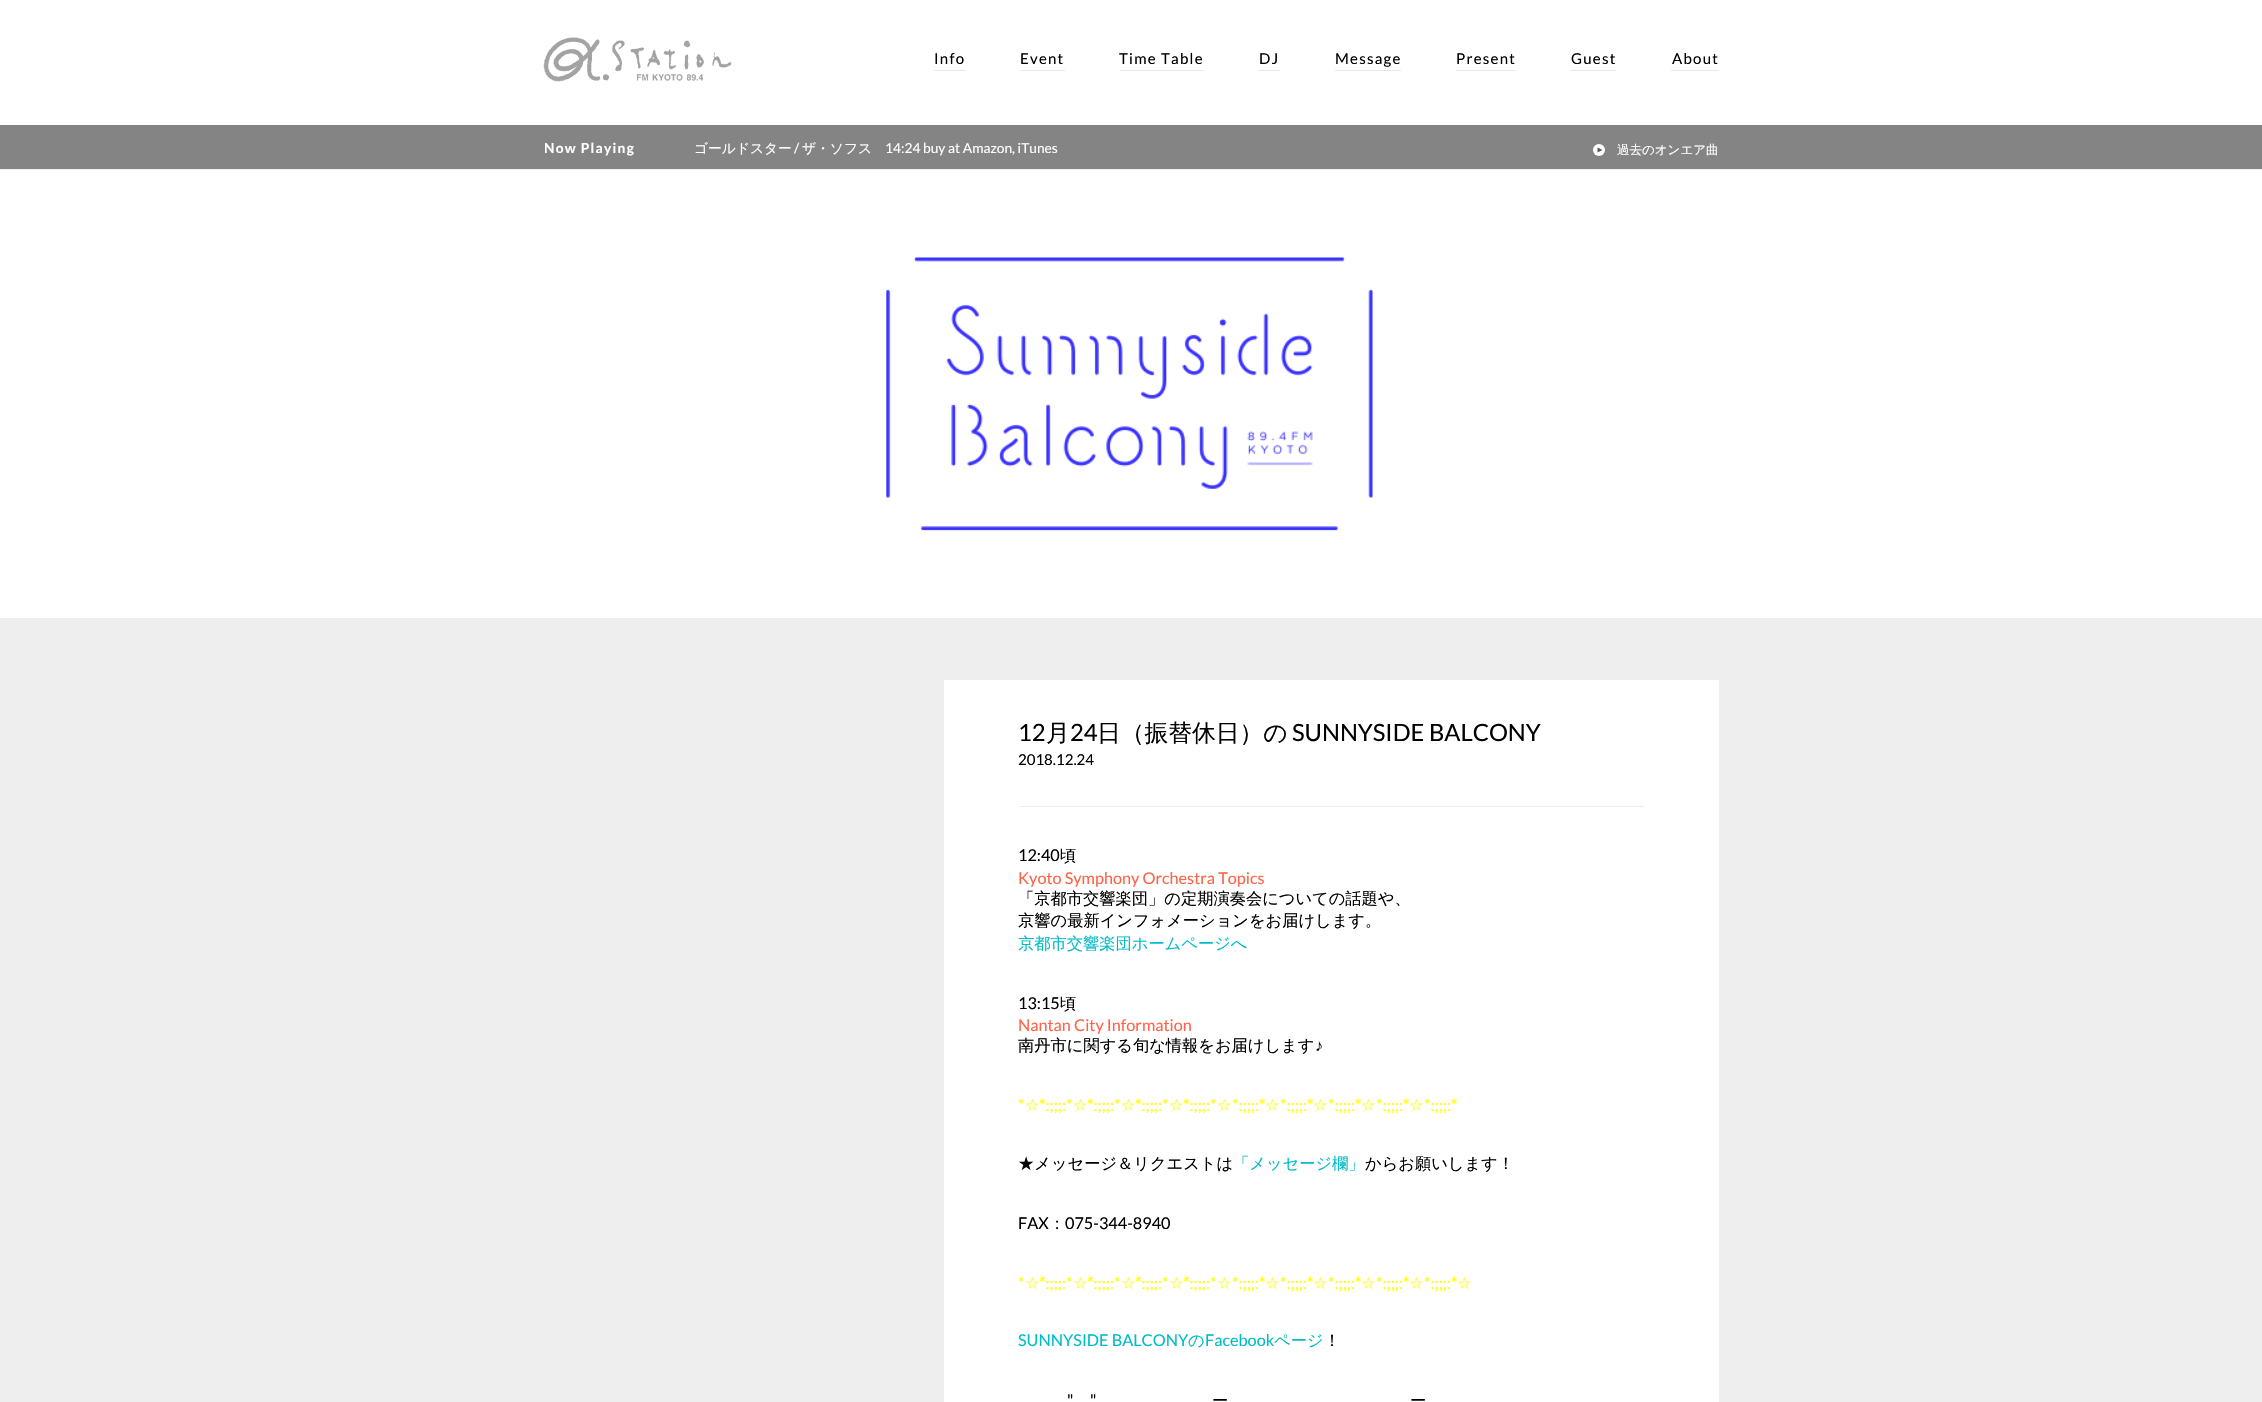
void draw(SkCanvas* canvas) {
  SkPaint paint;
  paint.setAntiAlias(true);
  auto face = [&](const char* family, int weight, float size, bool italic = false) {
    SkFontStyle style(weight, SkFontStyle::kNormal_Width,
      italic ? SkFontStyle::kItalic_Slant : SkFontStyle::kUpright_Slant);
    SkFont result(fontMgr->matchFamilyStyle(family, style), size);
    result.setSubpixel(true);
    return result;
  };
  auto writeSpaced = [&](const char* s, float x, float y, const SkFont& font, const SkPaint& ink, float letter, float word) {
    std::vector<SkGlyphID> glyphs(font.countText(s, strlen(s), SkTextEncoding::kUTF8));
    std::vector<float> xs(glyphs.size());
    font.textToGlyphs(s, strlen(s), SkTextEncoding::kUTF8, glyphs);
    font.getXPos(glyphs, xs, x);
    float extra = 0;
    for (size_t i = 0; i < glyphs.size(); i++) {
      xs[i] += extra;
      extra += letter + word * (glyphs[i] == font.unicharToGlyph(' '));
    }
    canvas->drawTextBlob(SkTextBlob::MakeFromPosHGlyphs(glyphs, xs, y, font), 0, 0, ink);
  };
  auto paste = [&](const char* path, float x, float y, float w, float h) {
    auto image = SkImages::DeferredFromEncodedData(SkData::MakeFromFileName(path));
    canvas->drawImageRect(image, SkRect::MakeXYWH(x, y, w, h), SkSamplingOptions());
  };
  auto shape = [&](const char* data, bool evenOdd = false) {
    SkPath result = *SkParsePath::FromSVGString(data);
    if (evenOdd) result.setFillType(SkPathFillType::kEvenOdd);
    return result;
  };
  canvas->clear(0xffeeeeee);
  paint.setColor(0xffffffff);
  canvas->drawRect(SkRect::MakeXYWH(0, 0, 2262, 125), paint);
  paste("img/1.png", 543, 37, 189, 45);
  {
    const struct { float x, y, w, h; SkColor color; } items[] = {
      {934, 70, 31, 1, 0xffe9e9e9},
      {1020, 70, 45, 1, 0xffe9e9e9},
      {1120, 70, 84, 1, 0xffe9e9e9},
      {1259, 70, 21, 1, 0xffe9e9e9},
      {1335, 70, 66, 1, 0xffe9e9e9},
      {1456, 70, 60, 1, 0xffe9e9e9},
      {1571, 70, 45, 1, 0xffe9e9e9},
      {1671, 70, 48, 1, 0xffe9e9e9},
      {0, 125, 2262, 44, 0xff848484},
    };
    for (auto [x, y, w, h, color] : items) {
      paint.setColor(color);
      canvas->drawRect(SkRect::MakeXYWH(x, y, w, h), paint);
    }
  }
  paint.setColor(0xffffffff);
  canvas->drawCircle(1599, 150, 6, paint);
  paint.setColor(0xff585858);
  canvas->drawPath(shape("M1597.5 152.5V147.5L1602.5 150Z"), paint);
  paint.setColor(0xffffffff);
  canvas->drawRect(SkRect::MakeXYWH(0, 170, 2262, 448), paint);
  paste("img/2.png", 886, 257, 487, 274);
  canvas->drawRect(SkRect::MakeXYWH(944, 680, 775, 722), paint);
  paint.setColor(0xffeeeeee);
  canvas->drawRect(SkRect::MakeXYWH(1019, 806, 625, 1), paint);
  auto f0 = face("Lato", 400, 15);
  paint.setColor(0xff000000);
  {
    const struct { const char* s; float x, y; } items[] = {
      {"Info", 934, 64},
      {"Event", 1020, 64},
      {"Time Table", 1119, 64},
      {"DJ", 1259, 64},
      {"Message", 1335, 64},
      {"Present", 1456, 64},
      {"Guest", 1571, 64},
      {"About", 1672, 64},
    };
    for (auto [s, x, y] : items) {
      writeSpaced(s, x, y, f0, paint, 1.25f, 0);
    }
  }
  auto f1 = face("Lato", 700, 13.75f);
  paint.setColor(0xffffffff);
  writeSpaced("Now Playing", 544, 153, f1, paint, 1.25f, 0);
  auto f2 = face("WenQuanYi Zen Hei", 500, 13.75f);
  canvas->drawString("ゴールドスター", 694, 153, f2, paint);
  auto f3 = face("Lato", 400, 13.75f);
  canvas->drawString("/", 794, 153, f3, paint);
  canvas->drawString("ザ・ソフス", 802, 153, f2, paint);
  canvas->drawString("14:24 buy at Amazon, iTunes", 885, 153, f3, paint);
  auto f4 = face("WenQuanYi Zen Hei", 500, 12.5f);
  canvas->drawString("過去のオンエア曲", 1617, 154, f4, paint);
  auto f5 = face("Lato", 400, 23.75f);
  paint.setColor(0xff000000);
  canvas->drawString("12", 1018, 741, f5, paint);
  auto f6 = face("WenQuanYi Zen Hei", 500, 23.75f);
  canvas->drawString("月", 1046, 741, f6, paint);
  canvas->drawString("24", 1070, 741, f5, paint);
  canvas->drawString("日（振替休日）の", 1097, 741, f6, paint);
  canvas->drawString("SUNNYSIDE BALCONY", 1292, 741, f5, paint);
  canvas->drawString("2018.12.24", 1018, 765, f0, paint);
  auto f7 = face("Lato", 400, 16.25f);
  canvas->drawString("12:40", 1018, 861, f7, paint);
  auto f8 = face("WenQuanYi Zen Hei", 500, 16.25f);
  canvas->drawString("頃", 1060, 861, f8, paint);
  paint.setColor(0xffff6347);
  canvas->drawString("Kyoto Symphony Orchestra Topics", 1018, 884, f7, paint);
  paint.setColor(0xff000000);
  canvas->drawString("「京都市交響楽団」の定期演奏会についての話題や、", 1018, 904, f8, paint);
  canvas->drawString("京響の最新インフォメーションをお届けします。", 1018, 926, f8, paint);
  paint.setColor(0xff00bcc8);
  canvas->drawString("京都市交響楽団ホームページへ", 1018, 949, f8, paint);
  paint.setColor(0xff000000);
  canvas->drawString("13:15", 1018, 1009, f7, paint);
  canvas->drawString("頃", 1060, 1009, f8, paint);
  paint.setColor(0xffff6347);
  canvas->drawString("Nantan City Information", 1018, 1031, f7, paint);
  paint.setColor(0xff000000);
  canvas->drawString("南丹市に関する旬な情報をお届けします", 1018, 1051, f8, paint);
  auto f9 = face("Liberation Serif", 400, 16.25f);
  canvas->drawString("♪", 1315, 1051, f9, paint);
  paint.setColor(0xffffff00);
  canvas->drawString("*", 1018, 1111, f7, paint);
  auto f10 = face("DejaVu Sans", 400, 16.25f);
  canvas->drawString("☆", 1025, 1111, f10, paint);
  canvas->drawString("*:;;;:*", 1039, 1111, f7, paint);
  canvas->drawString("☆", 1073, 1111, f10, paint);
  canvas->drawString("*:;;;:*", 1087, 1111, f7, paint);
  canvas->drawString("☆", 1121, 1111, f10, paint);
  canvas->drawString("*:;;;:*", 1135, 1111, f7, paint);
  canvas->drawString("☆", 1169, 1111, f10, paint);
  canvas->drawString("*:;;;:*", 1183, 1111, f7, paint);
  canvas->drawString("☆", 1217, 1111, f10, paint);
  canvas->drawString("*:;;;:*", 1232, 1111, f7, paint);
  canvas->drawString("☆", 1265, 1111, f10, paint);
  canvas->drawString("*:;;;:*", 1280, 1111, f7, paint);
  canvas->drawString("☆", 1313, 1111, f10, paint);
  canvas->drawString("*:;;;:*", 1328, 1111, f7, paint);
  canvas->drawString("☆", 1361, 1111, f10, paint);
  canvas->drawString("*:;;;:*", 1376, 1111, f7, paint);
  canvas->drawString("☆", 1409, 1111, f10, paint);
  canvas->drawString("*:;;;:*", 1424, 1111, f7, paint);
  paint.setColor(0xff000000);
  canvas->drawString("★メッセージ＆リクエストは", 1018, 1169, f8, paint);
  paint.setColor(0xff00bcc8);
  canvas->drawString("「メッセージ欄」", 1233, 1169, f8, paint);
  paint.setColor(0xff000000);
  canvas->drawString("からお願いします！", 1365, 1169, f8, paint);
  canvas->drawString("FAX", 1018, 1229, f7, paint);
  canvas->drawString("：", 1049, 1229, f8, paint);
  canvas->drawString("075-344-8940", 1065, 1229, f7, paint);
  paint.setColor(0xffffff00);
  canvas->drawString("*", 1018, 1289, f7, paint);
  canvas->drawString("☆", 1025, 1289, f10, paint);
  canvas->drawString("*:;;;:*", 1039, 1289, f7, paint);
  canvas->drawString("☆", 1073, 1289, f10, paint);
  canvas->drawString("*:;;;:*", 1087, 1289, f7, paint);
  canvas->drawString("☆", 1121, 1289, f10, paint);
  canvas->drawString("*:;;;:*", 1135, 1289, f7, paint);
  canvas->drawString("☆", 1169, 1289, f10, paint);
  canvas->drawString("*:;;;:*", 1183, 1289, f7, paint);
  canvas->drawString("☆", 1217, 1289, f10, paint);
  canvas->drawString("*:;;;:*", 1232, 1289, f7, paint);
  canvas->drawString("☆", 1265, 1289, f10, paint);
  canvas->drawString("*:;;;:*", 1280, 1289, f7, paint);
  canvas->drawString("☆", 1313, 1289, f10, paint);
  canvas->drawString("*:;;;:*", 1328, 1289, f7, paint);
  canvas->drawString("☆", 1361, 1289, f10, paint);
  canvas->drawString("*:;;;:*", 1376, 1289, f7, paint);
  canvas->drawString("☆", 1409, 1289, f10, paint);
  canvas->drawString("*:;;;:*", 1424, 1289, f7, paint);
  canvas->drawString("☆", 1457, 1289, f10, paint);
  paint.setColor(0xff00bcc8);
  canvas->drawString("SUNNYSIDE BALCONY", 1018, 1346, f7, paint);
  canvas->drawString("の", 1188, 1346, f8, paint);
  canvas->drawString("Facebook", 1205, 1346, f7, paint);
  canvas->drawString("ページ", 1274, 1346, f8, paint);
  paint.setColor(0xff000000);
  canvas->drawString("！", 1324, 1346, f8, paint);
  canvas->drawString("\"", 1067, 1406, f7, paint);
  canvas->drawString("\"", 1090, 1406, f7, paint);
  canvas->drawString("ー", 1212, 1406, f8, paint);
  canvas->drawString("ー", 1410, 1406, f8, paint);
}
